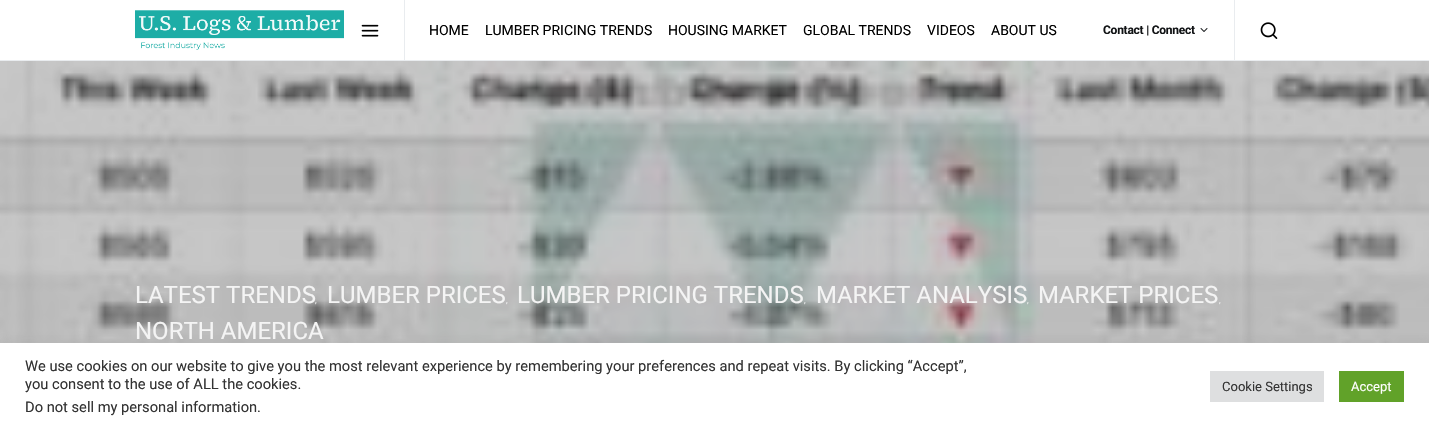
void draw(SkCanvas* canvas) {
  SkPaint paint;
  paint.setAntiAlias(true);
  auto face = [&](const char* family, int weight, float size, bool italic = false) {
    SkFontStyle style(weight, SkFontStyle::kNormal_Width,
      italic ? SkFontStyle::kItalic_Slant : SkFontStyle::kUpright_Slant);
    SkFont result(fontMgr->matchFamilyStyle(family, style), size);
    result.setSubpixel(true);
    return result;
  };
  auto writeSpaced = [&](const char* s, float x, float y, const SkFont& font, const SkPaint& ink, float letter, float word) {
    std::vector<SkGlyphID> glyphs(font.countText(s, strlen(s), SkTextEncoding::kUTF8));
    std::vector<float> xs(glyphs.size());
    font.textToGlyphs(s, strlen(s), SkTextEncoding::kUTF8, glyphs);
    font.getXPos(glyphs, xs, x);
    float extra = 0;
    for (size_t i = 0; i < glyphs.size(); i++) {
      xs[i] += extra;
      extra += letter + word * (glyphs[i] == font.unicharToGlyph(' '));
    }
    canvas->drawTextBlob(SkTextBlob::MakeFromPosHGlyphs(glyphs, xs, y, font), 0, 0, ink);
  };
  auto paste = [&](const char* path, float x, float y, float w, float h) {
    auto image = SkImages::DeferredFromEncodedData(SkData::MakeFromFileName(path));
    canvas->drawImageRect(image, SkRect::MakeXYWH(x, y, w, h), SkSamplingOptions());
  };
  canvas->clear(0xffffffff);
  paint.setColor(0xffe9ecef);
  canvas->drawRect(SkRect::MakeXYWH(0, 60, 1429, 1), paint);
  paste("img/1.png", 135, 10, 209, 40);
  paste("img/2.png", 361, 24, 18, 13);
  canvas->drawRect(SkRect::MakeXYWH(404, 0, 1, 60), paint);
  paste("img/3.png", 1200, 28, 8, 4);
  canvas->drawRect(SkRect::MakeXYWH(1234, 0, 1, 60), paint);
  paste("img/4.png", 1260, 22, 18, 17);
  paste("img/5.png", 0, 61, 1429, 282);
  paint.setColor(0x4dacabab);
  paint.setMaskFilter(SkMaskFilter::MakeBlur(kNormal_SkBlurStyle, 5));
  canvas->drawRect(SkRect::MakeXYWH(0, 342, 1429, 87), paint);
  paint.setMaskFilter(nullptr);
  {
    const struct { float x, y, w, h; SkColor color; } items[] = {
      {0, 343, 1429, 87, 0xffffffff},
      {1210, 371, 114, 31, 0xffdedfe0},
      {1339, 371, 65, 31, 0xff61a229},
    };
    for (auto [x, y, w, h, color] : items) {
      paint.setColor(color);
      canvas->drawRect(SkRect::MakeXYWH(x, y, w, h), paint);
    }
  }
  auto f0 = face("Roboto", 400, 14);
  paint.setColor(0xff000000);
  {
    const struct { const char* s; float x, y; } items[] = {
      {"HOME", 429, 35},
      {"LUMBER PRICING TRENDS", 485, 35},
      {"HOUSING MARKET", 668, 35},
      {"GLOBAL TRENDS", 803, 35},
      {"VIDEOS", 927, 35},
      {"ABOUT US", 991, 35},
    };
    for (auto [s, x, y] : items) {
      canvas->drawString(s, x, y, f0, paint);
    }
  }
  auto f1 = face("Roboto", 700, 12);
  paint.setColor(0xff121416);
  writeSpaced("Contact | Connect", 1103, 34, f1, paint, -0.25f, 0);
  auto f2 = face("Roboto", 400, 24);
  paint.setColor(0xfff4f4f4);
  canvas->drawString("LATEST TRENDS", 135, 303, f2, paint);
  auto f3 = face("Roboto", 400, 8);
  canvas->drawString(",", 315, 303, f3, paint);
  canvas->drawString("LUMBER PRICES", 327, 303, f2, paint);
  canvas->drawString(",", 506, 303, f3, paint);
  canvas->drawString("LUMBER PRICING TRENDS", 517, 303, f2, paint);
  canvas->drawString(",", 804, 303, f3, paint);
  canvas->drawString("MARKET ANALYSIS", 816, 303, f2, paint);
  canvas->drawString(",", 1027, 303, f3, paint);
  canvas->drawString("MARKET PRICES", 1038, 303, f2, paint);
  canvas->drawString(",", 1219, 303, f3, paint);
  canvas->drawString("NORTH AMERICA", 135, 339, f2, paint);
  auto f4 = face("Roboto", 400, 14.67f);
  paint.setColor(0xff333333);
  {
    const struct { const char* s; float x, y; } items[] = {
      {"We use cookies on our website to give you the most relevant experience by remembering your preferences and repeat visits. By clicking “Accept”,", 25, 371},
      {"you consent to the use of ALL the cookies.", 25, 389},
      {"Do not sell my personal information.", 25, 412},
    };
    for (auto [s, x, y] : items) {
      canvas->drawString(s, x, y, f4, paint);
    }
  }
  auto f5 = face("Roboto", 400, 13);
  canvas->drawString("Cookie Settings", 1222, 391, f5, paint);
  paint.setColor(0xffffffff);
  canvas->drawString("Accept", 1351, 391, f5, paint);
}
